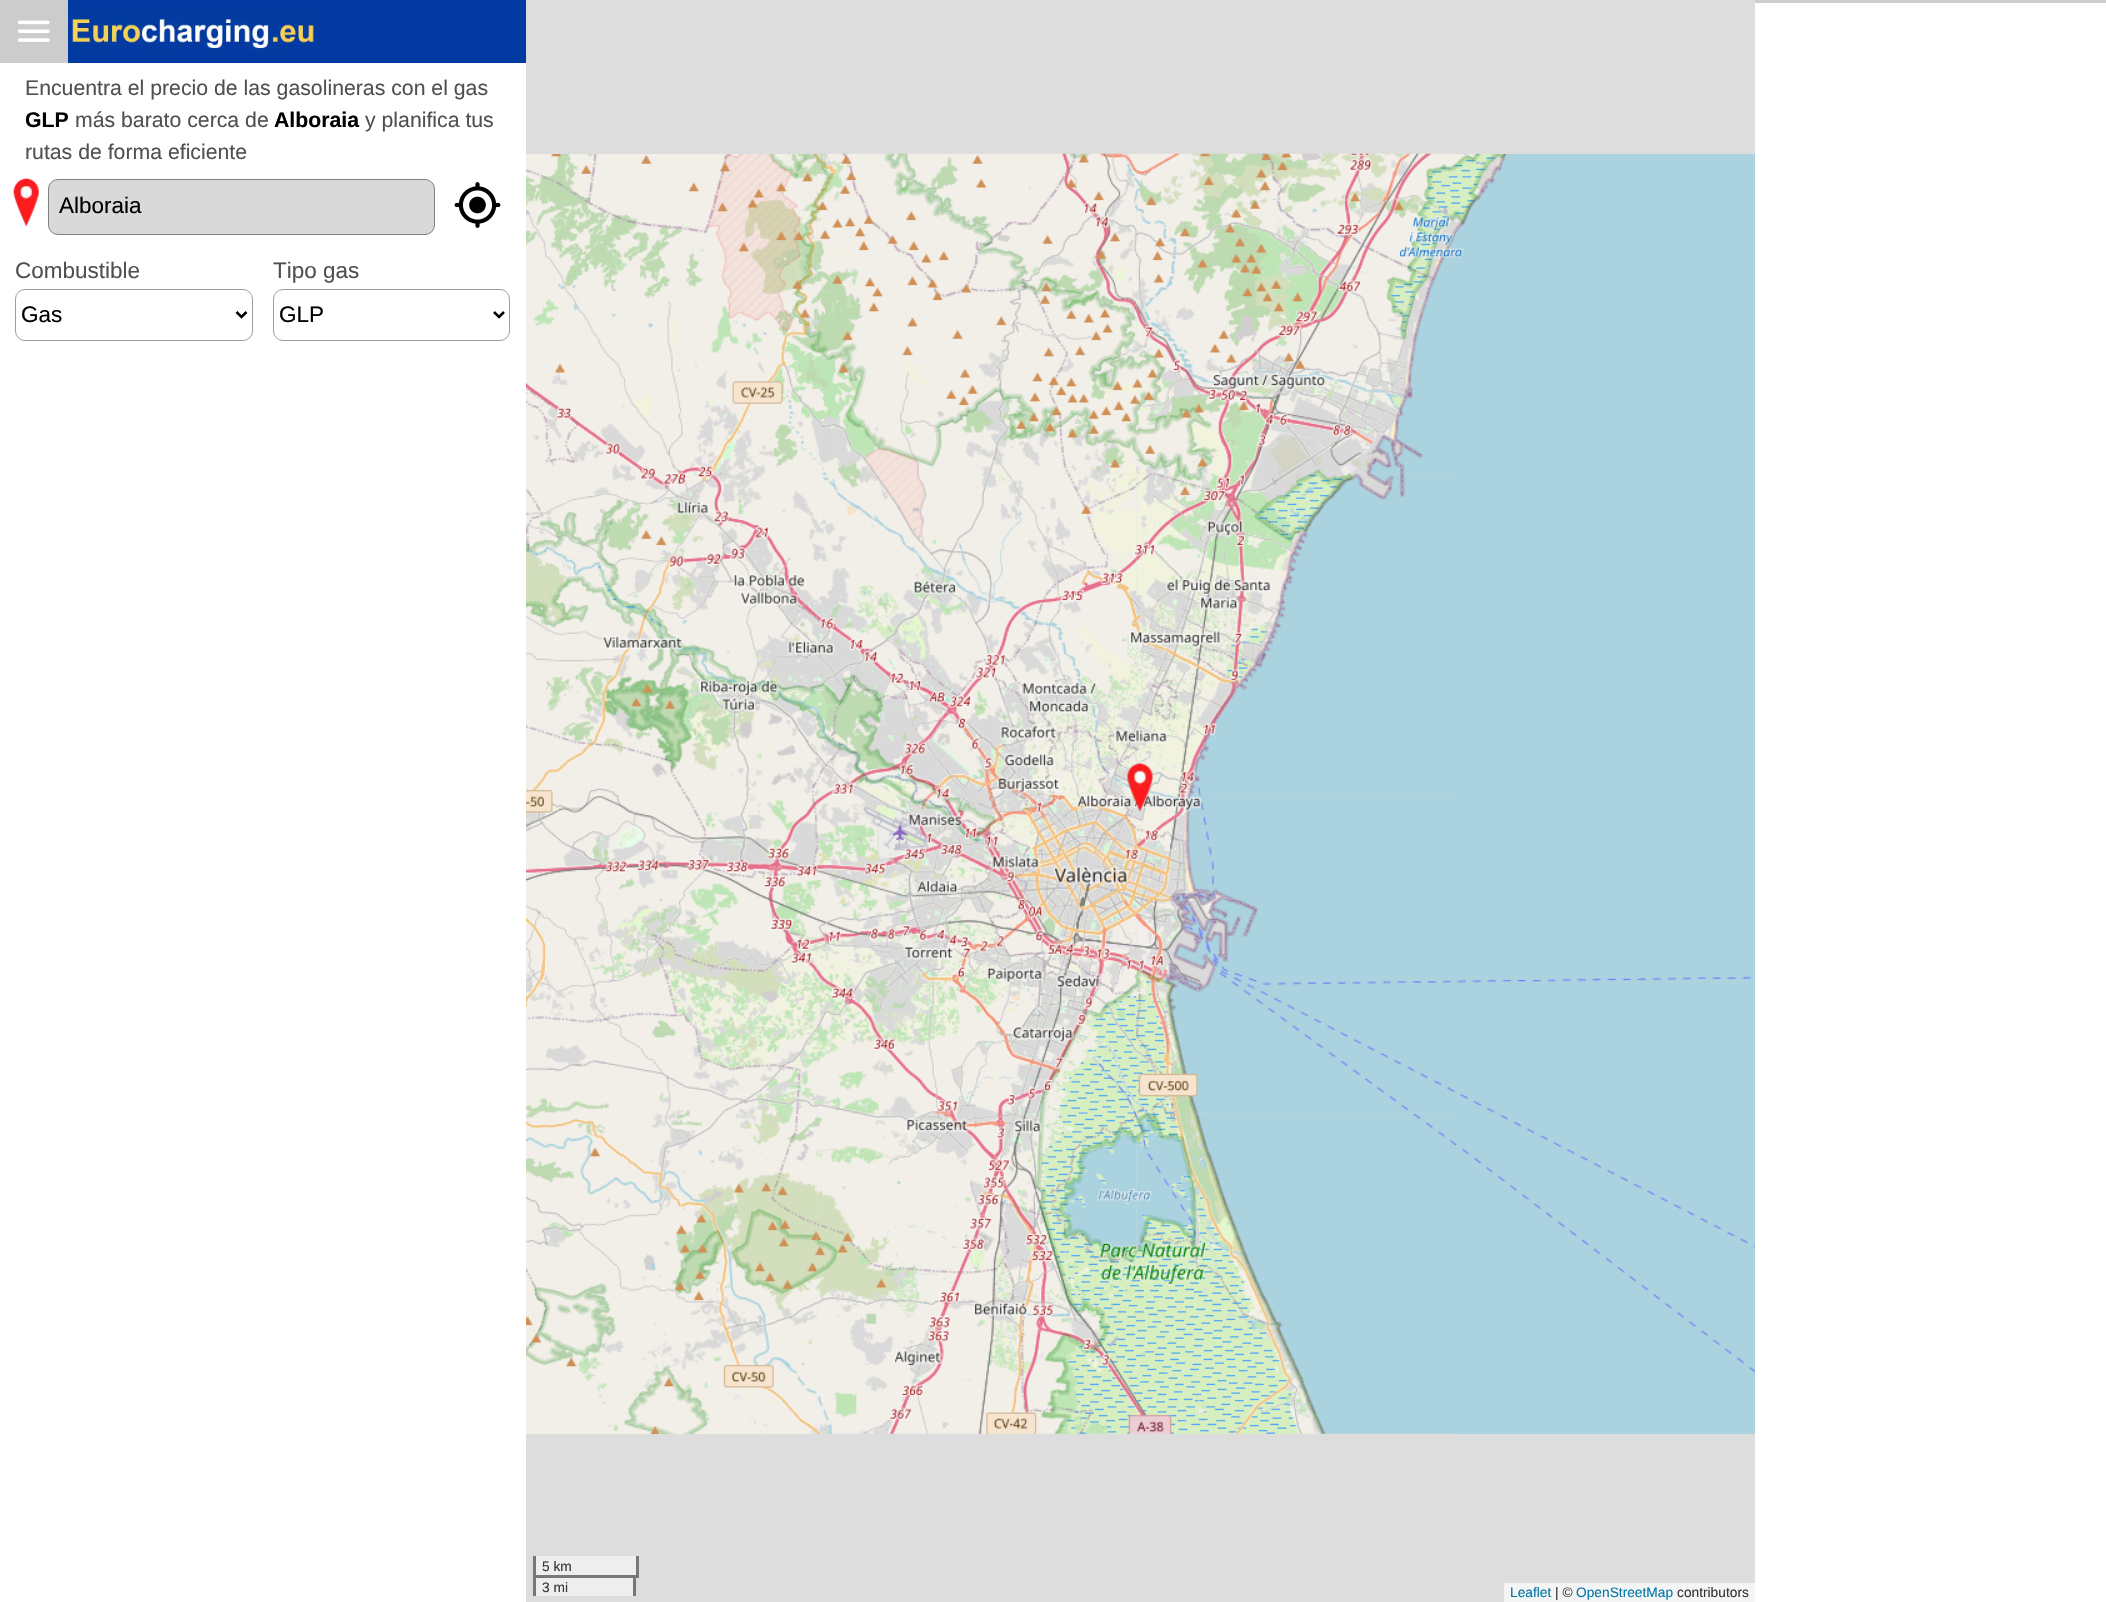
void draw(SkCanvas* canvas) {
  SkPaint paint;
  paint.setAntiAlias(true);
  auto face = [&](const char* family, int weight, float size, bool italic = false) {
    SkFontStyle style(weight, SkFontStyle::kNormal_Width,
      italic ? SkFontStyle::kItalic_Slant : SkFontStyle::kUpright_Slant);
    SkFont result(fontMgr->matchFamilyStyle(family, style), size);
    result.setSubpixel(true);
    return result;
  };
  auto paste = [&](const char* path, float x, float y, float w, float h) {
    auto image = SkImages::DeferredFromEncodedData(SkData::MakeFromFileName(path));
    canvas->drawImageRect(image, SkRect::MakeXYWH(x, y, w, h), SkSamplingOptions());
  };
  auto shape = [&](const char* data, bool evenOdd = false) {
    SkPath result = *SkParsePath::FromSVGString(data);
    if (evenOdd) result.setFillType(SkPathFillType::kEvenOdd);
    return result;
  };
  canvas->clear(0xffffffff);
  {
    const struct { float x, y, w, h; SkColor color; } items[] = {
      {1755, 0, 351, 3, 0xffcccccc},
      {68, 0, 458, 63, 0xff023aa1},
      {0, 0, 68, 63, 0xffcccccc},
    };
    for (auto [x, y, w, h, color] : items) {
      paint.setColor(color);
      canvas->drawRect(SkRect::MakeXYWH(x, y, w, h), paint);
    }
  }
  paste("img/1.png", 17, 20, 33, 22);
  paste("img/2.png", 68, 13, 247, 38);
  paste("img/3.png", 13, 178, 26, 49);
  paint.setColor(0xffd9d9d9);
  canvas->drawRoundRect(SkRect::MakeXYWH(48.5f, 179.5f, 386, 55), 9.5f, 9.5f, paint);
  paint.setStroke(true);
  paint.setStrokeWidth(1);
  paint.setColor(0xff808080);
  canvas->drawRoundRect(SkRect::MakeXYWH(48.5f, 179.5f, 386, 55), 9.5f, 9.5f, paint);
  paste("img/4.png", 454, 182, 47, 46);
  paint.setColor(0xff9e9e9e);
  canvas->drawRoundRect(SkRect::MakeXYWH(15.5f, 289.5f, 237, 51), 9.5f, 9.5f, paint);
  paint.setStrokeWidth(2.5f);
  paint.setColor(0xff000000);
  canvas->drawPath(shape("M236.5 312L241.5 317L246.5 312"), paint);
  paint.setStrokeWidth(1);
  paint.setColor(0xff9e9e9e);
  canvas->drawRoundRect(SkRect::MakeXYWH(273.5f, 289.5f, 236, 51), 9.5f, 9.5f, paint);
  paint.setStrokeWidth(2.5f);
  paint.setColor(0xff000000);
  canvas->drawPath(shape("M494 312L499 317L504 312"), paint);
  paint.setStroke(false);
  paint.setColor(0xffdddddd);
  canvas->drawRect(SkRect::MakeXYWH(526, 0, 1229, 1602), paint);
  paint.setColor(0xffeeeeee);
  canvas->drawRect(SkRect::MakeXYWH(536, 1578, 97, 18), paint);
  paste("img/10.png", 816, 473, 321, 321);
  paste("img/11.png", 1136, 473, 320, 321);
  paste("img/6.png", 816, 153, 321, 321);
  paste("img/5.png", 526, 154, 291, 320);
  paste("img/7.png", 1136, 153, 321, 321);
  paste("img/8.png", 1456, 154, 299, 320);
  paste("img/13.png", 816, 793, 321, 321);
  paste("img/9.png", 526, 474, 291, 320);
  paint.setColor(0xffaad3df);
  canvas->drawRect(SkRect::MakeXYWH(1456, 474, 299, 320), paint);
  paste("img/12.png", 526, 794, 291, 320);
  paste("img/14.png", 1136, 793, 320, 321);
  paste("img/15.png", 1456, 794, 299, 320);
  paste("img/17.png", 816, 1113, 321, 321);
  paste("img/16.png", 526, 1114, 291, 320);
  paste("img/18.png", 1136, 1113, 321, 321);
  paste("img/19.png", 1456, 1114, 299, 320);
  paste("img/20.png", 1127, 763, 26, 49);
  {
    const struct { float x, y, w, h; SkColor color; } items[] = {
      {536, 1556, 100, 19, 0xffeeeeee},
      {636, 1556, 3, 22, 0xff777777},
      {533, 1556, 3, 22, 0xff777777},
      {533, 1575, 102, 3, 0xff777777},
      {633, 1575, 3, 21, 0xff777777},
      {533, 1575, 3, 21, 0xff777777},
      {1504, 1583, 251, 19, 0xfff5f5f5},
    };
    for (auto [x, y, w, h, color] : items) {
      paint.setColor(color);
      canvas->drawRect(SkRect::MakeXYWH(x, y, w, h), paint);
    }
  }
  auto f0 = face("Liberation Sans", 400, 21.25f);
  paint.setColor(0xff505050);
  canvas->drawString("Encuentra el precio de las gasolineras con el gas", 25, 95, f0, paint);
  auto f1 = face("Liberation Sans", 700, 21.25f);
  paint.setColor(0xff000000);
  canvas->drawString("GLP", 25, 127, f1, paint);
  paint.setColor(0xff505050);
  canvas->drawString("más barato cerca de", 75, 127, f0, paint);
  paint.setColor(0xff000000);
  canvas->drawString("Alboraia", 274, 127, f1, paint);
  paint.setColor(0xff505050);
  canvas->drawString("y planifica tus", 365, 127, f0, paint);
  canvas->drawString("rutas de forma eficiente", 25, 159, f0, paint);
  auto f2 = face("Liberation Sans", 400, 22.5f);
  paint.setColor(0xff000000);
  canvas->drawString("Alboraia", 59, 213, f2, paint);
  paint.setColor(0xff505050);
  canvas->drawString("Combustible", 15, 278, f2, paint);
  paint.setColor(0xff000000);
  canvas->drawString("Gas", 21, 322, f2, paint);
  paint.setColor(0xff505050);
  canvas->drawString("Tipo gas", 273, 278, f2, paint);
  paint.setColor(0xff000000);
  canvas->drawString("GLP", 279, 322, f2, paint);
  auto f3 = face("Liberation Sans", 400, 13.75f);
  paint.setColor(0xff333333);
  canvas->drawString("5 km", 542, 1571, f3, paint);
  canvas->drawString("3 mi", 542, 1592, f3, paint);
  paint.setColor(0xff0078a8);
  canvas->drawString("Leaflet", 1510, 1597, f3, paint);
  paint.setColor(0xff333333);
  canvas->drawString("| ©", 1555, 1597, f3, paint);
  paint.setColor(0xff0078a8);
  canvas->drawString("OpenStreetMap", 1576, 1597, f3, paint);
  paint.setColor(0xff333333);
  canvas->drawString("contributors", 1677, 1597, f3, paint);
}
